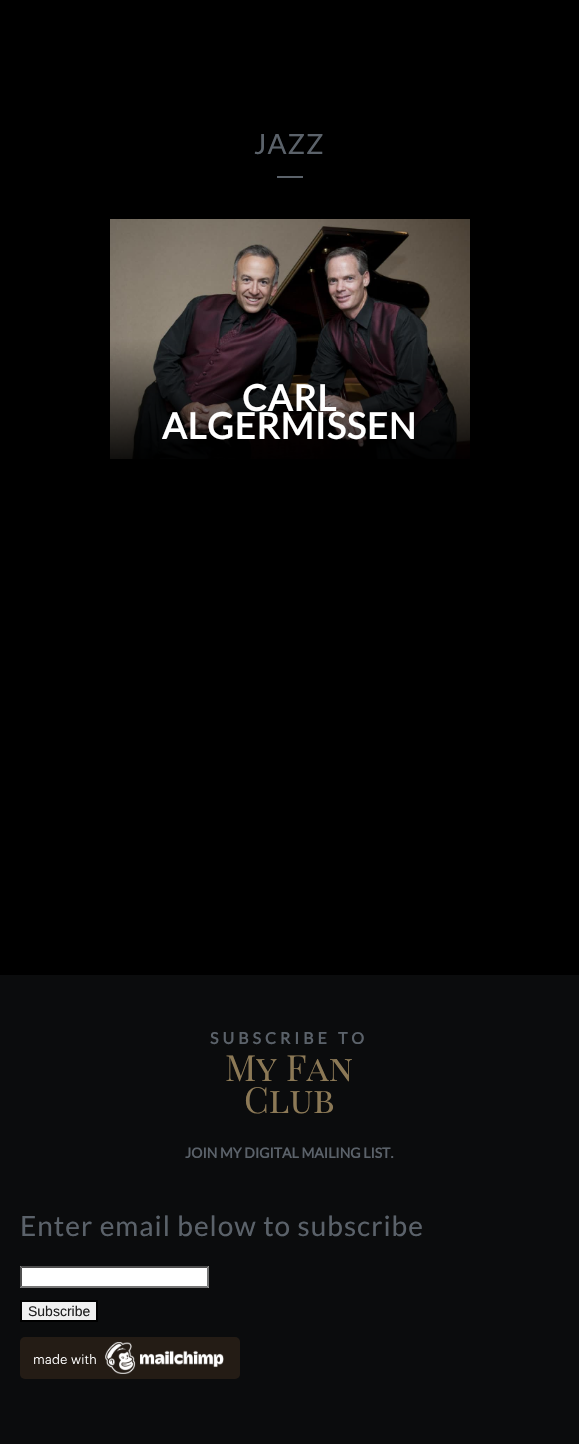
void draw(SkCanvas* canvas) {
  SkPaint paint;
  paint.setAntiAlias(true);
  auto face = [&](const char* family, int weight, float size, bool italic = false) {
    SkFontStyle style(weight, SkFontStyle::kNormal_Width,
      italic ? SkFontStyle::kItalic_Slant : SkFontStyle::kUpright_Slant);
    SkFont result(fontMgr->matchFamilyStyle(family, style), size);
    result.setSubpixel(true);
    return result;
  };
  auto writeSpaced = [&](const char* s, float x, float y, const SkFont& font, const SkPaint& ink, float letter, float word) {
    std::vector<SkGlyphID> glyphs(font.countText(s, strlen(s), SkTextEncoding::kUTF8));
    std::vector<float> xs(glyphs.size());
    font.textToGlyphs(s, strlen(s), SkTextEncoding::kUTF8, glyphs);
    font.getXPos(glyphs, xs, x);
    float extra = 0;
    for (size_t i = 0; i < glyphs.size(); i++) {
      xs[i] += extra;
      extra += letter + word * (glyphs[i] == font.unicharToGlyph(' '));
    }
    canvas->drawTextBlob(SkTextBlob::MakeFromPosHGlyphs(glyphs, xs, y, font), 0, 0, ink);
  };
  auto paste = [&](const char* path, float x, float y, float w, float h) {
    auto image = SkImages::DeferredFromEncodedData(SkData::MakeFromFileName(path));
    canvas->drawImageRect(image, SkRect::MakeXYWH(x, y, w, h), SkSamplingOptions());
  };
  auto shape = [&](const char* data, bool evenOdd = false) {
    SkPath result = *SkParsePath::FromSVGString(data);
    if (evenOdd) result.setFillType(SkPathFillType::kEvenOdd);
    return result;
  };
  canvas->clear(0xff000000);
  paint.setColor(0xff5b626a);
  canvas->drawRect(SkRect::MakeXYWH(277, 176, 26, 2), paint);
  paste("img/1.png", 110, 219, 360, 240);
  paint.setColor(0xff0b0c0d);
  canvas->drawRect(SkRect::MakeXYWH(0, 975, 579, 469), paint);
  paint.setColor(0xffffffff);
  canvas->drawRect(SkRect::MakeXYWH(20, 1266, 189, 22), paint);
  paint.setColor(0xff4f4f4f);
  canvas->drawPath(shape("M20 1266H209L207 1268H22Z"), paint);
  paint.setColor(0xff767676);
  canvas->drawPath(shape("M209 1266V1288L207 1286V1268Z"), paint);
  canvas->drawPath(shape("M209 1288H20L22 1286H207Z"), paint);
  paint.setColor(0xff4f4f4f);
  canvas->drawPath(shape("M20 1288V1266L22 1268V1286Z"), paint);
  paint.setColor(0xffefefef);
  canvas->drawRect(SkRect::MakeXYWH(21, 1301, 76, 20), paint);
  paint.setStroke(true);
  paint.setStrokeWidth(2);
  paint.setColor(0xff000000);
  canvas->drawRect(SkRect::MakeXYWH(21, 1301, 76, 20), paint);
  paste("img/2.png", 20, 1337, 220, 42);
  auto f0 = face("Lato", 400, 28);
  paint.setStroke(false);
  paint.setColor(0xff5b626a);
  writeSpaced("JAZZ", 254, 154, f0, paint, 1, 0);
  auto f1 = face("Lato", 700, 36);
  paint.setColor(0xffffffff);
  writeSpaced("CARL", 242, 411, f1, paint, 1, 0);
  writeSpaced("ALGERMISSEN", 162, 439, f1, paint, 1, 0);
  auto f2 = face("Lato", 700, 16);
  paint.setColor(0xff5b626a);
  writeSpaced("SUBSCRIBE TO", 210, 1044, f2, paint, 4, 0);
  auto f3 = face("Playfair Display SC", 400, 36);
  paint.setColor(0xff8c7956);
  canvas->drawString("My Fan", 225, 1081, f3, paint);
  canvas->drawString("Club", 244, 1113, f3, paint);
  auto f4 = face("Lato", 700, 14);
  paint.setColor(0xff5b626a);
  canvas->drawString("JOIN MY DIGITAL MAILING LIST.", 185, 1158, f4, paint);
  writeSpaced("Enter email below to subscribe", 20, 1236, f0, paint, 1, 0);
  auto f5 = face("Liberation Sans", 400, 14);
  paint.setColor(0xff1f1f1f);
  canvas->drawString("Subscribe", 28, 1316, f5, paint);
}
